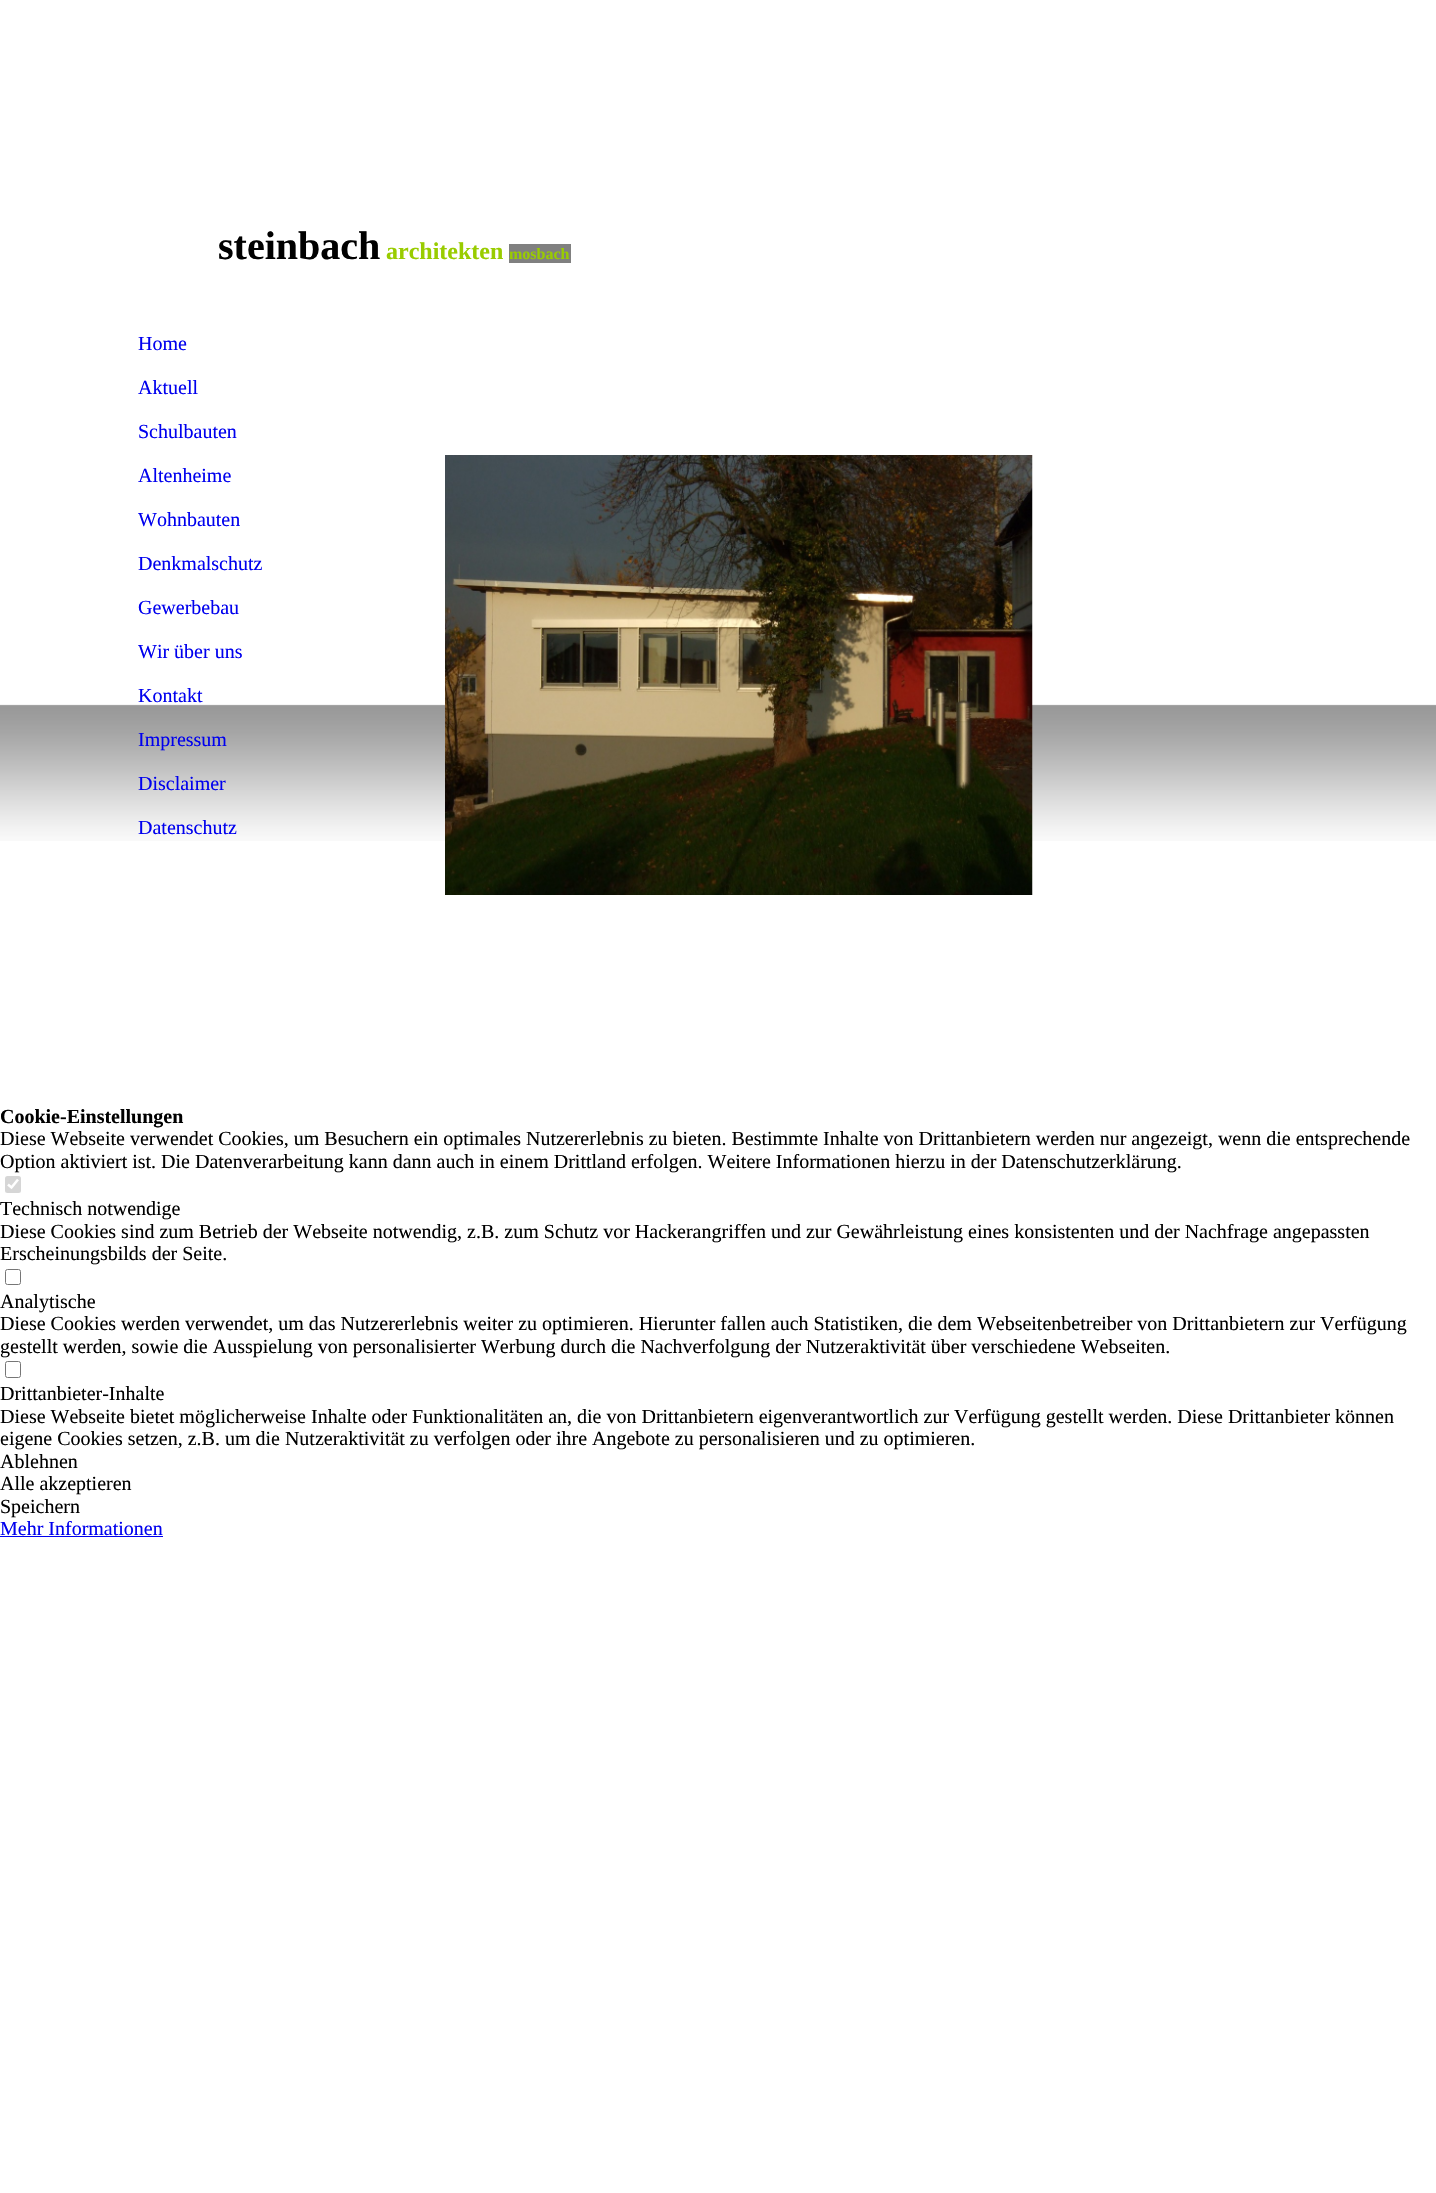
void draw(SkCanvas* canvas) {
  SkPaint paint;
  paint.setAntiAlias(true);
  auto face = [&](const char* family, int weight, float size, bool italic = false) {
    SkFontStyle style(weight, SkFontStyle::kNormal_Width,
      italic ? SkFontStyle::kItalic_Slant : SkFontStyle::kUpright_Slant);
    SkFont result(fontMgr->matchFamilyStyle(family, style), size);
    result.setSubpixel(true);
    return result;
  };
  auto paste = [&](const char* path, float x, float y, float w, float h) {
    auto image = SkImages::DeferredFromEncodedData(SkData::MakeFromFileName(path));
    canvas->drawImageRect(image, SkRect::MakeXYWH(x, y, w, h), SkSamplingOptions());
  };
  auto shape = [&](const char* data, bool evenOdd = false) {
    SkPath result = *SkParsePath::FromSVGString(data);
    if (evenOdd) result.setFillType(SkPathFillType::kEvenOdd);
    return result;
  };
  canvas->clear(0xffffffff);
  paste("img/1.png", 0, 704, 1436, 137);
  paint.setColor(0xff808080);
  canvas->drawRect(SkRect::MakeXYWH(509, 244, 62, 19), paint);
  paste("img/2.png", 445, 455, 588, 440);
  paint.setColor(0xffd6d6d6);
  canvas->drawRoundRect(SkRect::MakeXYWH(5, 1176, 16, 17), 2.5f, 2.5f, paint);
  paint.setStroke(true);
  paint.setStrokeWidth(2.6f);
  paint.setColor(0xffffffff);
  canvas->drawPath(shape("M8 1184.5L11.5 1187.5L18 1179.5"), paint);
  paint.setStrokeWidth(1);
  paint.setColor(0xff767676);
  canvas->drawRoundRect(SkRect::MakeXYWH(5.5f, 1269.5f, 15, 15), 2, 2, paint);
  canvas->drawRoundRect(SkRect::MakeXYWH(5.5f, 1361.5f, 15, 16), 2, 2, paint);
  paint.setStroke(false);
  paint.setColor(0xff0000ee);
  canvas->drawRect(SkRect::MakeXYWH(0, 1536, 163, 1), paint);
  auto f0 = face("Liberation Serif", 700, 40);
  paint.setColor(0xff000000);
  canvas->drawString("steinbach", 218, 259, f0, paint);
  auto f1 = face("Liberation Serif", 700, 24);
  paint.setColor(0xff99cc00);
  canvas->drawString("architekten", 386, 259, f1, paint);
  auto f2 = face("Liberation Serif", 700, 16);
  canvas->drawString("mosbach", 509, 259, f2, paint);
  auto f3 = face("Liberation Serif", 400, 20);
  paint.setColor(0xff0000ee);
  {
    const struct { const char* s; float x, y; } items[] = {
      {"Home", 138, 350},
      {"Aktuell", 138, 394},
      {"Schulbauten", 138, 438},
      {"Altenheime", 138, 482},
      {"Wohnbauten", 138, 526},
      {"Denkmalschutz", 138, 570},
      {"Gewerbebau", 138, 614},
      {"Wir über uns", 138, 658},
      {"Kontakt", 138, 702},
      {"Impressum", 138, 746},
      {"Disclaimer", 138, 790},
      {"Datenschutz", 138, 834},
    };
    for (auto [s, x, y] : items) {
      canvas->drawString(s, x, y, f3, paint);
    }
  }
  auto f4 = face("Liberation Serif", 700, 20);
  paint.setColor(0xff000000);
  canvas->drawString("Cookie-Einstellungen", 0, 1123, f4, paint);
  {
    const struct { const char* s; float x, y; } items[] = {
      {"Diese Webseite verwendet Cookies, um Besuchern ein optimales Nutzererlebnis zu bieten. Bestimmte Inhalte von Drittanbietern werden nur angezeigt, wenn die entsprechende", 0, 1145},
      {"Option aktiviert ist. Die Datenverarbeitung kann dann auch in einem Drittland erfolgen. Weitere Informationen hierzu in der Datenschutzerklärung.", 0, 1168},
      {"Technisch notwendige", 0, 1215},
      {"Diese Cookies sind zum Betrieb der Webseite notwendig, z.B. zum Schutz vor Hackerangriffen und zur Gewährleistung eines konsistenten und der Nachfrage angepassten", 0, 1238},
      {"Erscheinungsbilds der Seite.", 0, 1260},
      {"Analytische", 0, 1308},
      {"Diese Cookies werden verwendet, um das Nutzererlebnis weiter zu optimieren. Hierunter fallen auch Statistiken, die dem Webseitenbetreiber von Drittanbietern zur Verfügung", 0, 1330},
      {"gestellt werden, sowie die Ausspielung von personalisierter Werbung durch die Nachverfolgung der Nutzeraktivität über verschiedene Webseiten.", 0, 1353},
      {"Drittanbieter-Inhalte", 0, 1400},
      {"Diese Webseite bietet möglicherweise Inhalte oder Funktionalitäten an, die von Drittanbietern eigenverantwortlich zur Verfügung gestellt werden. Diese Drittanbieter können", 0, 1423},
      {"eigene Cookies setzen, z.B. um die Nutzeraktivität zu verfolgen oder ihre Angebote zu personalisieren und zu optimieren.", 0, 1445},
      {"Ablehnen", 0, 1468},
      {"Alle akzeptieren", 0, 1490},
      {"Speichern", 0, 1513},
    };
    for (auto [s, x, y] : items) {
      canvas->drawString(s, x, y, f3, paint);
    }
  }
  paint.setColor(0xff0000ee);
  canvas->drawString("Mehr Informationen", 0, 1535, f3, paint);
}
